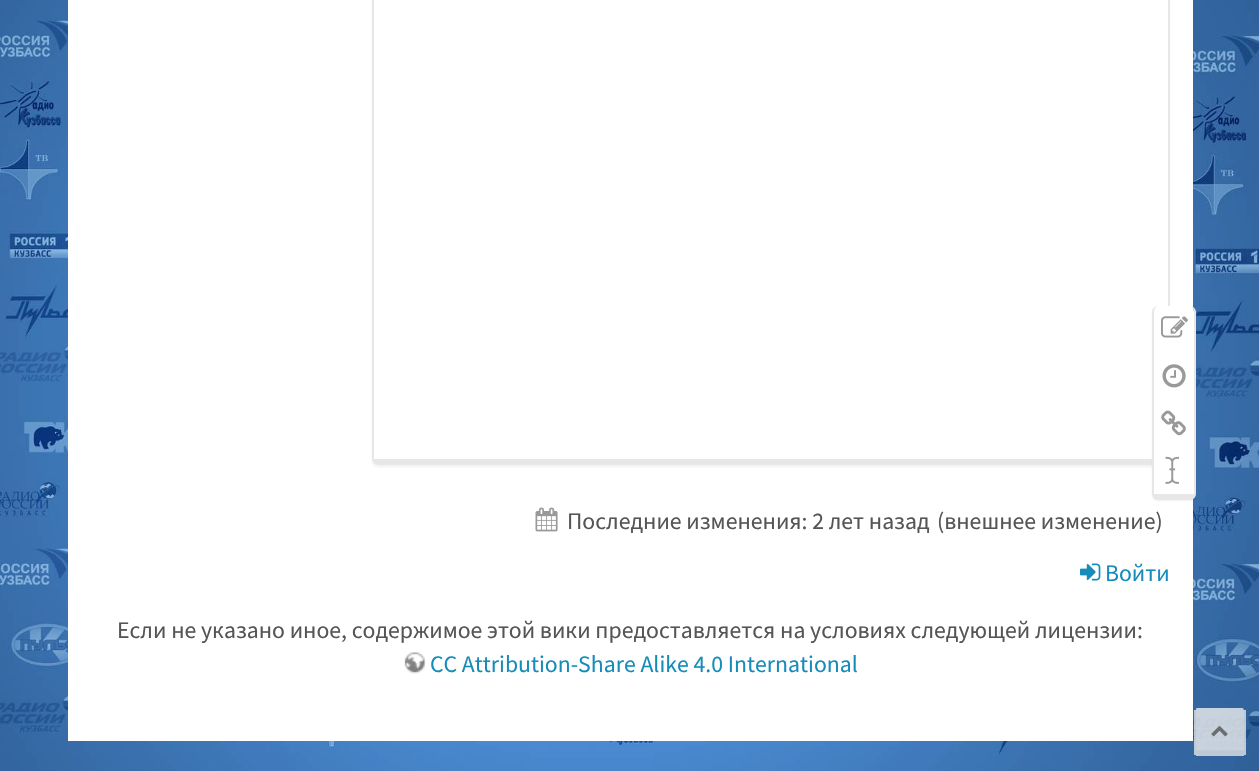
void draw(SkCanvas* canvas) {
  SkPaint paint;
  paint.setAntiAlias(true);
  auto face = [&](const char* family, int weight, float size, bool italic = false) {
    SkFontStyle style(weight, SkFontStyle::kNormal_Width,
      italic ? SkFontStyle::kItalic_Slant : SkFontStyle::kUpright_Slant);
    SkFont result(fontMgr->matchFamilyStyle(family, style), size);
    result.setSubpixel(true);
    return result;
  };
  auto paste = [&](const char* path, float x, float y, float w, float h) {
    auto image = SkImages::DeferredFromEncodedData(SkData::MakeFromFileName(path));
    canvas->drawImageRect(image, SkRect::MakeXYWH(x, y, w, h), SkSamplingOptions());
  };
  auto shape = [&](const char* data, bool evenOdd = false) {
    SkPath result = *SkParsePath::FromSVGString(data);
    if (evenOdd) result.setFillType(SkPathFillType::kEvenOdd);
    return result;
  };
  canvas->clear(0xffffffff);
  paste("img/1.png", 0, 0, 1259, 771);
  paint.setColor(0xffffffff);
  canvas->drawRect(SkRect::MakeXYWH(68, 0, 1125, 741), paint);
  canvas->save();
  canvas->clipPath(shape("M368 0H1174V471H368ZM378-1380H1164C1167.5-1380 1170-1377.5 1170-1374V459C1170 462.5 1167.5 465 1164 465H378C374.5 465 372 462.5 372 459V-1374C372-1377.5 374.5-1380 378-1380Z", true), true);
  paint.setColor(0x0d000000);
  paint.setMaskFilter(SkMaskFilter::MakeBlur(kNormal_SkBlurStyle, 1));
  canvas->drawRoundRect(SkRect::MakeXYWH(372, -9, 798, 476), 6, 6, paint);
  paint.setMaskFilter(nullptr);
  canvas->restore();
  paint.setColor(0xffe7e7e7);
  canvas->drawPath(shape("M378-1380H1164C1167-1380 1170-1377 1170-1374V459C1170 462 1167 465 1164 465H378C375 465 372 462 372 459V-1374C372-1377 375-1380 378-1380ZM378-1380H1164C1166-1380 1168-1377 1168-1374V459H374V-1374C374-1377 376-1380 378-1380Z", true), paint);
  paint.setColor(0x0d000000);
  paint.setMaskFilter(SkMaskFilter::MakeBlur(kNormal_SkBlurStyle, 1));
  canvas->drawRoundRect(SkRect::MakeXYWH(1152, 308, 44, 193), 6, 6, paint);
  paint.setMaskFilter(nullptr);
  paint.setColor(0xffffffff);
  canvas->drawPath(shape("M1158 306H1190C1192 306 1194 309 1194 312V494H1154V312C1154 309 1156 306 1158 306Z"), paint);
  paint.setColor(0xffe7e7e7);
  canvas->drawPath(shape("M1158 306H1190C1193 306 1196 309 1196 312V494C1196 497 1193 500 1190 500H1158C1155 500 1152 497 1152 494V312C1152 309 1155 306 1158 306ZM1158 306H1190C1192 306 1194 309 1194 312V494H1154V312C1154 309 1156 306 1158 306Z", true), paint);
  paste("img/2.png", 1161, 316, 27, 22);
  paste("img/3.png", 1162, 364, 24, 24);
  paste("img/4.png", 1161, 410, 25, 26);
  paste("img/5.png", 1165, 456, 14, 28);
  paste("img/6.png", 535, 507, 23, 25);
  paste("img/7.png", 1080, 563, 21, 18);
  paste("img/8.png", 404, 652, 22, 22);
  paint.setColor(0xcceeeeee);
  canvas->drawPath(shape("M1197 708H1242C1243 708 1244 709 1244 711V750H1196V711C1196 709 1196 708 1197 708Z"), paint);
  {
    const struct { float x, y, w, h; SkColor color; } items[] = {
      {1244, 710, 2, 45, 0xcce2e2e2},
      {1196, 750, 48, 6, 0xcce2e2e2},
      {1194, 710, 2, 45, 0xcce2e2e2},
    };
    for (auto [x, y, w, h, color] : items) {
      paint.setColor(color);
      canvas->drawRect(SkRect::MakeXYWH(x, y, w, h), paint);
    }
  }
  paste("img/9.png", 1211, 726, 17, 11);
  auto f0 = face("Source Sans Pro", 400, 23.75f);
  paint.setColor(0xff555555);
  canvas->drawString("Последние изменения: 2 лет назад", 567, 529, f0, paint);
  canvas->drawString("(внешнее изменение)", 937, 529, f0, paint);
  paint.setColor(0xff158cba);
  canvas->drawString("Войти", 1105, 581, f0, paint);
  paint.setColor(0xff555555);
  canvas->drawString("Если не указано иное, содержимое этой вики предоставляется на условиях следующей лицензии:", 117, 638, f0, paint);
  paint.setColor(0xff158cba);
  canvas->drawString("CC Attribution-Share Alike 4.0 International", 430, 672, f0, paint);
}
